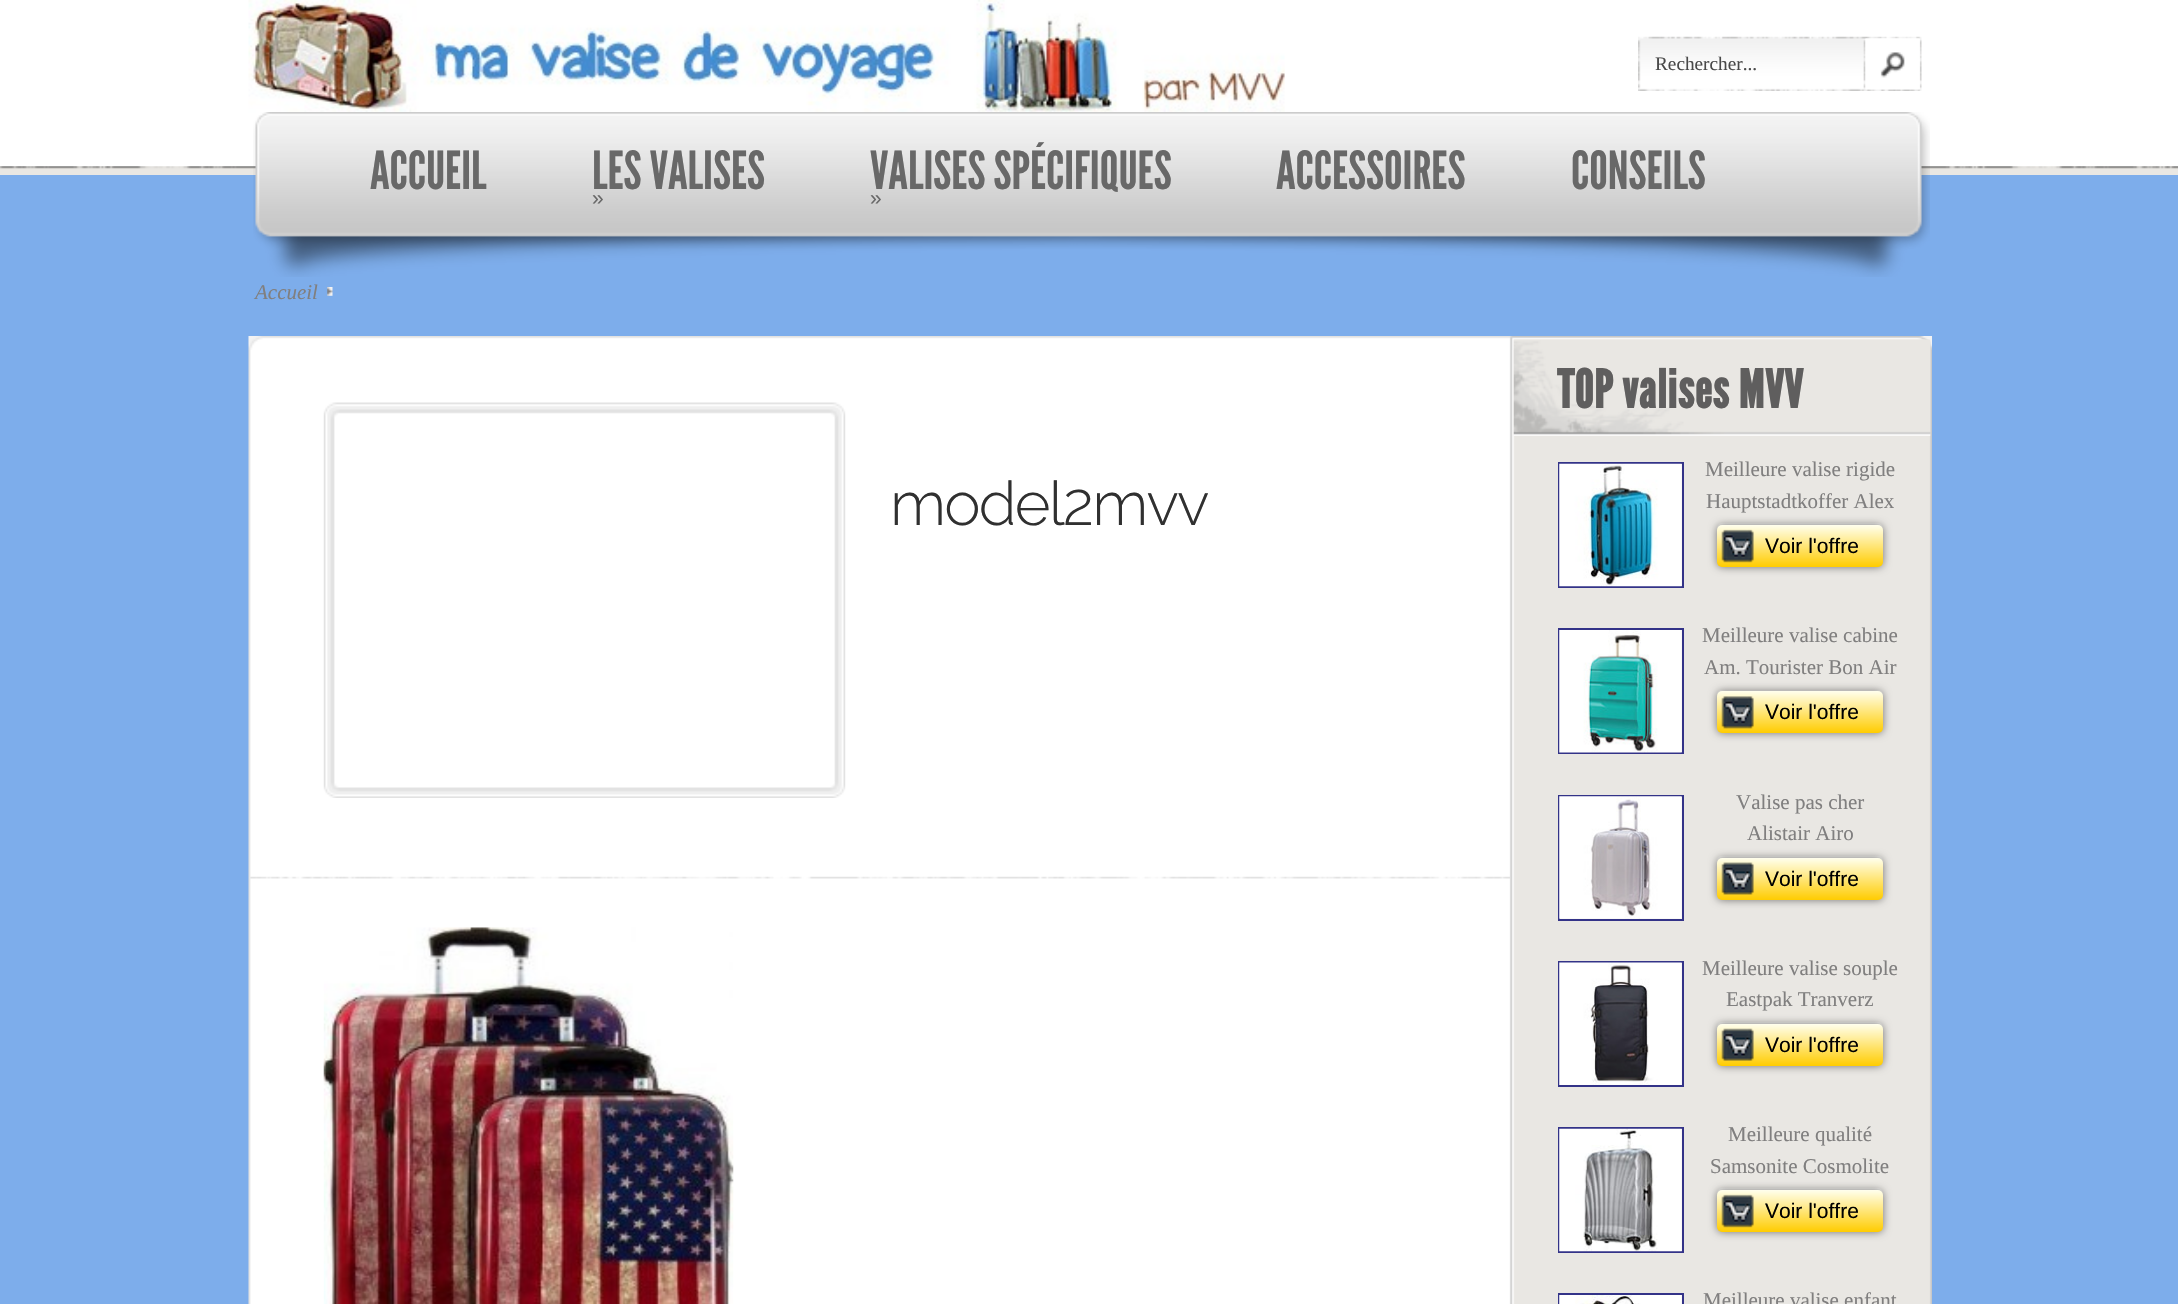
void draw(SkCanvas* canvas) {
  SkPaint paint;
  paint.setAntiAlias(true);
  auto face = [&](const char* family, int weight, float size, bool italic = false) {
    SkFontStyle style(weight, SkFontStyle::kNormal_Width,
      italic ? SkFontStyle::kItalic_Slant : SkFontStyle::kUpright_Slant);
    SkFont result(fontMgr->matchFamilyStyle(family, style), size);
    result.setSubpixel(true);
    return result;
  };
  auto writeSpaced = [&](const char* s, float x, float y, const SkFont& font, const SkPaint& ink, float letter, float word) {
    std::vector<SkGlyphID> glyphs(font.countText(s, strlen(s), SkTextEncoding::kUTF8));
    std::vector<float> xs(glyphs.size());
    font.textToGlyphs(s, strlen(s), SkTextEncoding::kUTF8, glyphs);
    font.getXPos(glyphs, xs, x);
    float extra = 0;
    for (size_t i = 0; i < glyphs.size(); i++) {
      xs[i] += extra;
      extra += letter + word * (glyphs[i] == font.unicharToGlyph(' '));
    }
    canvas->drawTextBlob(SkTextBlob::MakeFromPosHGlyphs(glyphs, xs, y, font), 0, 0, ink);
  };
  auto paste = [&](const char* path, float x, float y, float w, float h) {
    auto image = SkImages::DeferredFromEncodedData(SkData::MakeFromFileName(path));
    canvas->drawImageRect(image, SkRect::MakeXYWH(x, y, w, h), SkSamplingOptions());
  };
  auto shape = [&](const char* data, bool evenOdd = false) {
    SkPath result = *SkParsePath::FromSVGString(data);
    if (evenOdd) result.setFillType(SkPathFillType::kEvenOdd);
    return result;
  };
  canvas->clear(0xff7dadeb);
  paint.setColor(0xffffffff);
  canvas->drawRect(SkRect::MakeXYWH(0, 0, 2178, 167), paint);
  paste("img/1.png", 0, 166, 2178, 9);
  paste("img/2.png", 248, 0, 1037, 113);
  paste("img/3.png", 1638, 36, 284, 55);
  paste("img/4.png", 1865, 38, 55, 52);
  paste("img/5.png", 253, 112, 1677, 165);
  paste("img/6.png", 327, 287, 6, 9);
  paste("img/7.png", 248, 336, 1684, 14);
  paste("img/8.png", 248, 350, 1684, 954);
  paste("img/9.png", 323, 402, 523, 396);
  paste("img/10.png", 250, 876, 1260, 3);
  paste("img/11.png", 323, 927, 411, 377);
  paste("img/12.png", 1513, 339, 418, 97);
  paint.setStroke(true);
  paint.setStrokeWidth(2);
  paint.setColor(0xff333388);
  canvas->drawRect(SkRect::MakeXYWH(1559, 463, 124, 124), paint);
  paste("img/13.png", 1559, 463, 123, 124);
  paint.setStroke(false);
  paint.setColor(0xfff2f1ee);
  canvas->drawPath(shape("M1722 523C1719 523 1717 526 1717 529C1718 527 1720 525 1722 525H1878C1881 525 1883 527 1883 530C1883 527 1882 523 1878 523Z"), paint);
  paint.setColor(0x80000000);
  paint.setMaskFilter(SkMaskFilter::MakeBlur(kNormal_SkBlurStyle, 4.5f));
  canvas->drawRoundRect(SkRect::MakeXYWH(1717, 525, 166, 42), 5, 5, paint);
  paint.setMaskFilter(nullptr);
  {
    const SkColor colors[] = {0xffffffee, 0xffffcc00};
    const float stops[] = {0, 1};
    const SkPoint ends[] = {{1800, 525}, {1800, 567}};
    paint.setShader(SkGradientShader::MakeLinear(ends, colors, stops, 2, SkTileMode::kClamp));
    paint.setAlpha(255);
  }
  canvas->drawRoundRect(SkRect::MakeXYWH(1717, 525, 166, 42), 5, 5, paint);
  paste("img/14.png", 1721, 529, 33, 34);
  paint.setStroke(true);
  paint.setShader(nullptr);
  paint.setColor(0xff333388);
  canvas->drawRect(SkRect::MakeXYWH(1559, 629, 124, 124), paint);
  paste("img/15.png", 1559, 630, 123, 123);
  paint.setStroke(false);
  paint.setColor(0xfff2f1ee);
  canvas->drawPath(shape("M1722 690C1719 690 1717 692 1717 695C1718 693 1720 691 1722 691H1878C1881 691 1883 694 1883 696C1883 693 1882 690 1878 690Z"), paint);
  paint.setColor(0x80000000);
  paint.setMaskFilter(SkMaskFilter::MakeBlur(kNormal_SkBlurStyle, 4.5f));
  canvas->drawRoundRect(SkRect::MakeXYWH(1717, 691, 166, 42), 5, 5, paint);
  paint.setMaskFilter(nullptr);
  {
    const SkColor colors[] = {0xffffffee, 0xffffcc00};
    const float stops[] = {0, 1};
    const SkPoint ends[] = {{1800, 691}, {1800, 733}};
    paint.setShader(SkGradientShader::MakeLinear(ends, colors, stops, 2, SkTileMode::kClamp));
    paint.setAlpha(255);
  }
  canvas->drawRoundRect(SkRect::MakeXYWH(1717, 691, 166, 42), 5, 5, paint);
  paste("img/16.png", 1721, 696, 33, 33);
  paint.setStroke(true);
  paint.setShader(nullptr);
  paint.setColor(0xff333388);
  canvas->drawRect(SkRect::MakeXYWH(1559, 796, 124, 124), paint);
  paste("img/17.png", 1559, 796, 123, 123);
  paint.setStroke(false);
  paint.setColor(0xfff2f1ee);
  canvas->drawPath(shape("M1722 856C1719 856 1717 858 1717 861C1718 859 1720 858 1722 858H1878C1881 858 1883 860 1883 863C1883 859 1882 856 1878 856Z"), paint);
  paint.setColor(0x80000000);
  paint.setMaskFilter(SkMaskFilter::MakeBlur(kNormal_SkBlurStyle, 4.5f));
  canvas->drawRoundRect(SkRect::MakeXYWH(1717, 858, 166, 42), 5, 5, paint);
  paint.setMaskFilter(nullptr);
  {
    const SkColor colors[] = {0xffffffee, 0xffffcc00};
    const float stops[] = {0, 1};
    const SkPoint ends[] = {{1800, 858}, {1800, 900}};
    paint.setShader(SkGradientShader::MakeLinear(ends, colors, stops, 2, SkTileMode::kClamp));
    paint.setAlpha(255);
  }
  canvas->drawRoundRect(SkRect::MakeXYWH(1717, 858, 166, 42), 5, 5, paint);
  paste("img/18.png", 1721, 862, 33, 33);
  paint.setStroke(true);
  paint.setShader(nullptr);
  paint.setColor(0xff333388);
  canvas->drawRect(SkRect::MakeXYWH(1559, 962, 124, 124), paint);
  paste("img/19.png", 1559, 962, 123, 123);
  paint.setStroke(false);
  paint.setColor(0xfff2f1ee);
  canvas->drawPath(shape("M1722 1022C1719 1022 1717 1025 1717 1027C1718 1025 1720 1024 1722 1024H1878C1881 1024 1883 1026 1883 1029C1883 1026 1882 1022 1878 1022Z"), paint);
  paint.setColor(0x80000000);
  paint.setMaskFilter(SkMaskFilter::MakeBlur(kNormal_SkBlurStyle, 4.5f));
  canvas->drawRoundRect(SkRect::MakeXYWH(1717, 1024, 166, 42), 5, 5, paint);
  paint.setMaskFilter(nullptr);
  {
    const SkColor colors[] = {0xffffffee, 0xffffcc00};
    const float stops[] = {0, 1};
    const SkPoint ends[] = {{1800, 1024}, {1800, 1066}};
    paint.setShader(SkGradientShader::MakeLinear(ends, colors, stops, 2, SkTileMode::kClamp));
    paint.setAlpha(255);
  }
  canvas->drawRoundRect(SkRect::MakeXYWH(1717, 1024, 166, 42), 5, 5, paint);
  paste("img/20.png", 1721, 1028, 33, 33);
  paint.setStroke(true);
  paint.setShader(nullptr);
  paint.setColor(0xff333388);
  canvas->drawRect(SkRect::MakeXYWH(1559, 1128, 124, 124), paint);
  paste("img/21.png", 1559, 1128, 123, 124);
  paint.setStroke(false);
  paint.setColor(0xfff2f1ee);
  canvas->drawPath(shape("M1722 1188C1719 1188 1717 1191 1717 1194C1718 1192 1720 1190 1722 1190H1878C1881 1190 1883 1192 1883 1195C1883 1192 1882 1188 1878 1188Z"), paint);
  paint.setColor(0x80000000);
  paint.setMaskFilter(SkMaskFilter::MakeBlur(kNormal_SkBlurStyle, 4.5f));
  canvas->drawRoundRect(SkRect::MakeXYWH(1717, 1190, 166, 42), 5, 5, paint);
  paint.setMaskFilter(nullptr);
  {
    const SkColor colors[] = {0xffffffee, 0xffffcc00};
    const float stops[] = {0, 1};
    const SkPoint ends[] = {{1800, 1190}, {1800, 1232}};
    paint.setShader(SkGradientShader::MakeLinear(ends, colors, stops, 2, SkTileMode::kClamp));
    paint.setAlpha(255);
  }
  canvas->drawRoundRect(SkRect::MakeXYWH(1717, 1190, 166, 42), 5, 5, paint);
  paste("img/14.png", 1721, 1194, 33, 34);
  paint.setStroke(true);
  paint.setShader(nullptr);
  paint.setColor(0xff333388);
  canvas->drawRect(SkRect::MakeXYWH(1559, 1294, 124, 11), paint);
  paste("img/22.png", 1559, 1295, 123, 9);
  auto f0 = face("Liberation Serif", 400, 19.25f);
  paint.setStroke(false);
  paint.setColor(0xff494949);
  canvas->drawString("Rechercher...", 1655, 70, f0, paint);
  auto f1 = face("League Gothic", 400, 52.5f);
  paint.setColor(0xff686868);
  canvas->drawString("ACCUEIL", 370, 189, f1, paint);
  canvas->drawString("LES VALISES", 592, 189, f1, paint);
  auto f2 = face("Liberation Sans", 400, 21);
  canvas->drawString("»", 592, 205, f2, paint);
  canvas->drawString("VALISES SPÉCIFIQUES", 870, 189, f1, paint);
  canvas->drawString("»", 870, 205, f2, paint);
  canvas->drawString("ACCESSOIRES", 1276, 189, f1, paint);
  canvas->drawString("CONSEILS", 1571, 189, f1, paint);
  auto f3 = face("Liberation Serif", 400, 21, true);
  paint.setColor(0xff807f7f);
  canvas->drawString("Accueil", 255, 299, f3, paint);
  auto f4 = face("Raleway", 300, 61.25f);
  paint.setColor(0xff303030);
  writeSpaced("model2mvv", 890, 525, f4, paint, -1.75f, 0);
  auto f5 = face("League Gothic", 700, 52.5f);
  paint.setColor(0xff5f5e5e);
  writeSpaced("TOP valises MVV", 1557, 408, f5, paint, 0.9f, 0);
  auto f6 = face("Liberation Serif", 400, 21);
  paint.setColor(0xff807f7f);
  canvas->drawString("Meilleure valise rigide", 1705, 476, f6, paint);
  canvas->drawString("Hauptstadtkoffer Alex", 1706, 508, f6, paint);
  paint.setColor(0xff000000);
  canvas->drawString("Voir l'offre", 1765, 553, f2, paint);
  paint.setColor(0xff807f7f);
  canvas->drawString("Meilleure valise cabine", 1702, 642, f6, paint);
  canvas->drawString("Am. Tourister Bon Air", 1704, 674, f6, paint);
  paint.setColor(0xff000000);
  canvas->drawString("Voir l'offre", 1765, 719, f2, paint);
  paint.setColor(0xff807f7f);
  canvas->drawString("Valise pas cher", 1736, 809, f6, paint);
  canvas->drawString("Alistair Airo", 1747, 840, f6, paint);
  paint.setColor(0xff000000);
  canvas->drawString("Voir l'offre", 1765, 886, f2, paint);
  paint.setColor(0xff807f7f);
  canvas->drawString("Meilleure valise souple", 1702, 975, f6, paint);
  canvas->drawString("Eastpak Tranverz", 1726, 1006, f6, paint);
  paint.setColor(0xff000000);
  canvas->drawString("Voir l'offre", 1765, 1052, f2, paint);
  paint.setColor(0xff807f7f);
  canvas->drawString("Meilleure qualité", 1728, 1141, f6, paint);
  canvas->drawString("Samsonite Cosmolite", 1710, 1173, f6, paint);
  paint.setColor(0xff000000);
  canvas->drawString("Voir l'offre", 1765, 1218, f2, paint);
  paint.setColor(0xff807f7f);
  canvas->drawString("Meilleure valise enfant", 1703, 1307, f6, paint);
}
